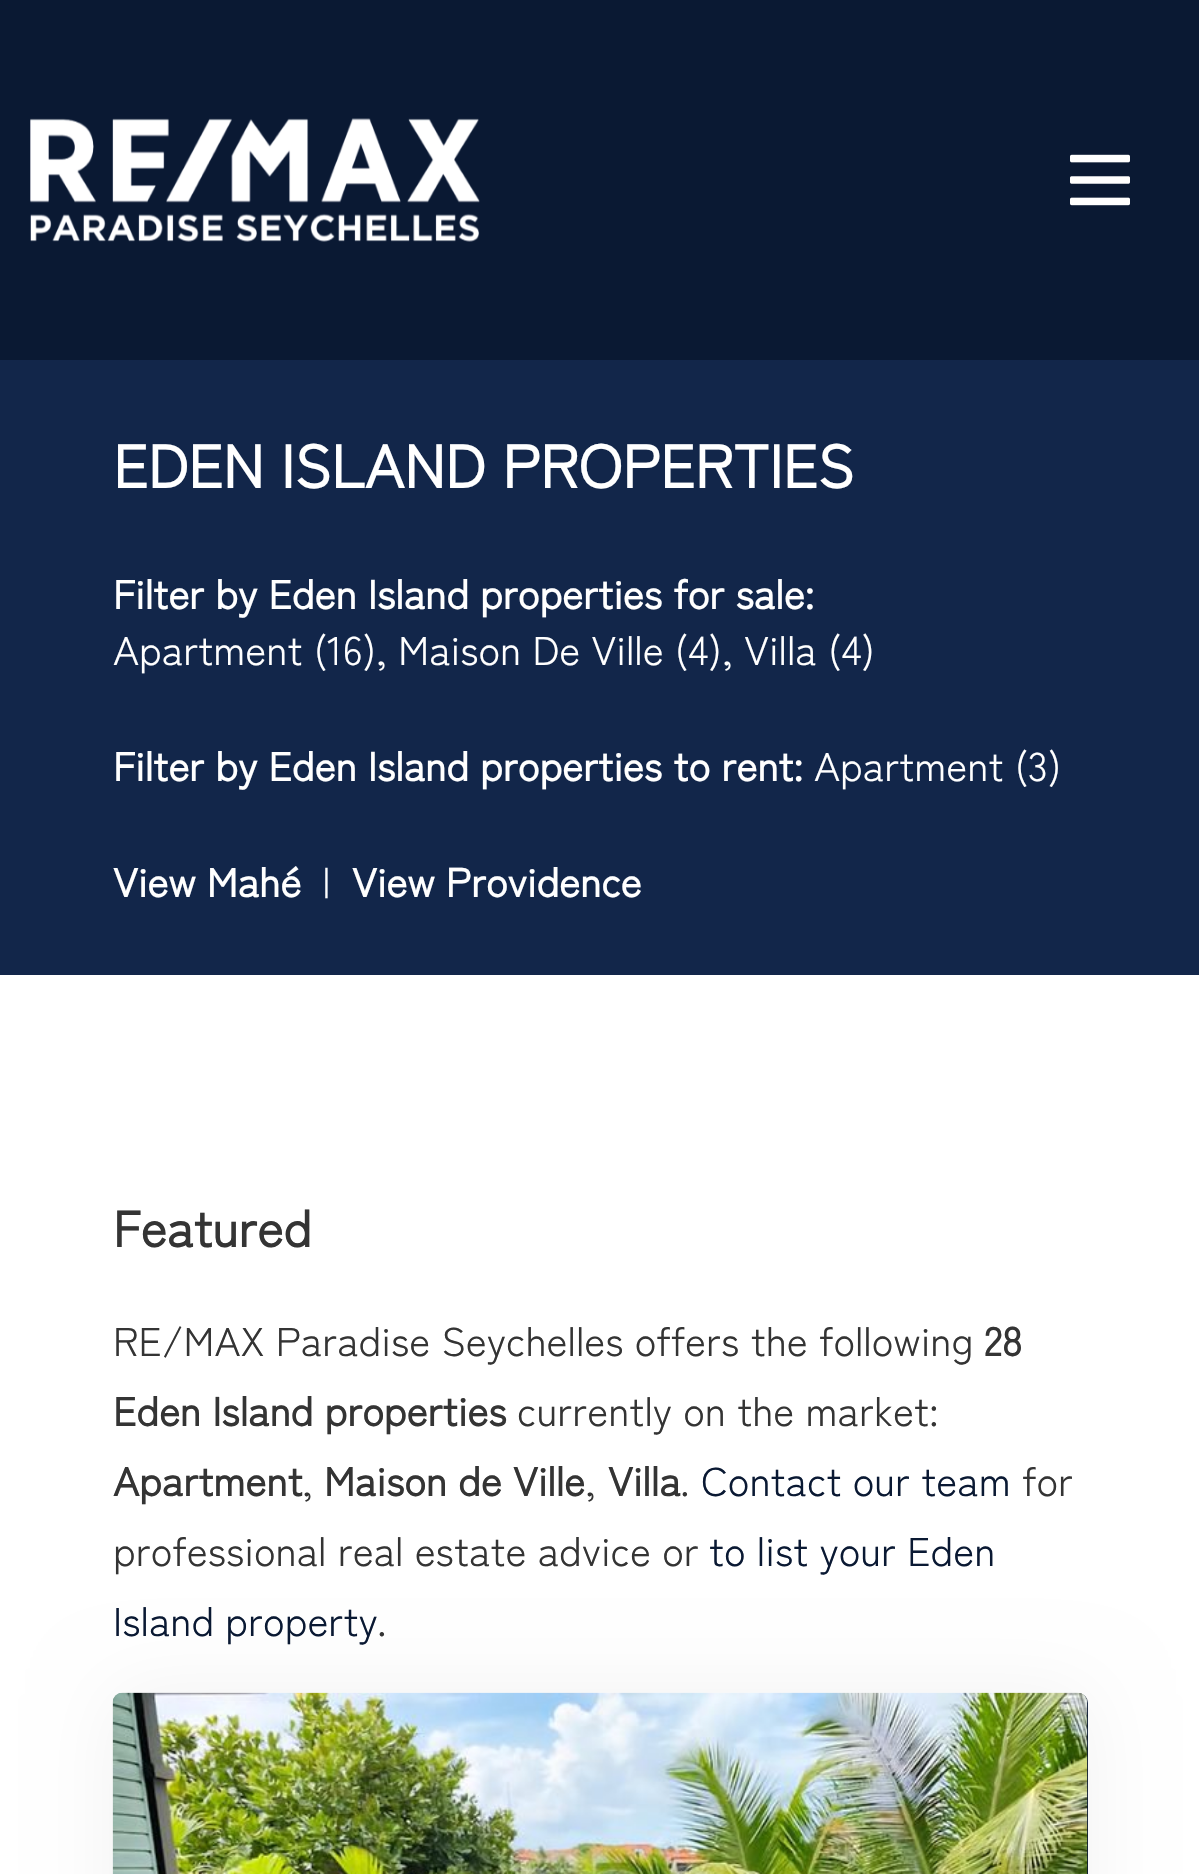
void draw(SkCanvas* canvas) {
  SkPaint paint;
  paint.setAntiAlias(true);
  auto face = [&](const char* family, int weight, float size, bool italic = false) {
    SkFontStyle style(weight, SkFontStyle::kNormal_Width,
      italic ? SkFontStyle::kItalic_Slant : SkFontStyle::kUpright_Slant);
    SkFont result(fontMgr->matchFamilyStyle(family, style), size);
    result.setSubpixel(true);
    return result;
  };
  auto paste = [&](const char* path, float x, float y, float w, float h) {
    auto image = SkImages::DeferredFromEncodedData(SkData::MakeFromFileName(path));
    canvas->drawImageRect(image, SkRect::MakeXYWH(x, y, w, h), SkSamplingOptions());
  };
  canvas->clear(0xff12264a);
  paint.setColor(0xff0a1933);
  canvas->drawRect(SkRect::MakeXYWH(0, 0, 1199, 360), paint);
  paste("img/1.png", 30, 118, 450, 124);
  paste("img/2.png", 1070, 154, 60, 52);
  paint.setColor(0xffffffff);
  canvas->drawRect(SkRect::MakeXYWH(0, 975, 1199, 899), paint);
  paint.setColor(0x0d000000);
  paint.setMaskFilter(SkMaskFilter::MakeBlur(kNormal_SkBlurStyle, 40));
  canvas->drawRoundRect(SkRect::MakeXYWH(113, 1693, 975, 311), 10, 10, paint);
  paint.setMaskFilter(nullptr);
  paint.setColor(0xff0a1933);
  canvas->drawRoundRect(SkRect::MakeXYWH(113, 1693, 975, 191), 10, 10, paint);
  paste("img/3.png", 112, 1692, 976, 182);
  auto f0 = face("Zen Kaku Gothic Antique", 700, 60);
  paint.setColor(0xffffffff);
  canvas->drawString("EDEN ISLAND PROPERTIES", 113, 488, f0, paint);
  auto f1 = face("Zen Kaku Gothic Antique", 700, 40);
  canvas->drawString("Filter by Eden Island properties for sale:", 113, 609, f1, paint);
  auto f2 = face("Zen Kaku Gothic Antique", 400, 40);
  canvas->drawString("Apartment (16), Maison De Ville (4), Villa (4)", 113, 665, f2, paint);
  canvas->drawString("Filter by Eden Island properties to rent:", 113, 781, f1, paint);
  canvas->drawString("Apartment (3)", 814, 781, f2, paint);
  canvas->drawString("View Mahé", 113, 897, f1, paint);
  canvas->drawString("|", 322, 897, f2, paint);
  canvas->drawString("View Providence", 352, 897, f1, paint);
  auto f3 = face("Zen Kaku Gothic Antique", 700, 50);
  paint.setColor(0xff343434);
  canvas->drawString("Featured", 113, 1247, f3, paint);
  canvas->drawString("RE/MAX Paradise Seychelles offers the following", 113, 1356, f2, paint);
  canvas->drawString("28", 984, 1356, f1, paint);
  canvas->drawString("Eden Island properties", 113, 1426, f1, paint);
  canvas->drawString("currently on the market:", 517, 1426, f2, paint);
  canvas->drawString("Apartment", 113, 1496, f1, paint);
  canvas->drawString(",", 302, 1496, f2, paint);
  canvas->drawString("Maison de Ville", 324, 1496, f1, paint);
  canvas->drawString(",", 585, 1496, f2, paint);
  canvas->drawString("Villa", 608, 1496, f1, paint);
  canvas->drawString(".", 680, 1496, f2, paint);
  paint.setColor(0xff0a1933);
  canvas->drawString("Contact our team", 701, 1496, f2, paint);
  paint.setColor(0xff343434);
  canvas->drawString("for", 1022, 1496, f2, paint);
  canvas->drawString("professional real estate advice or", 113, 1566, f2, paint);
  paint.setColor(0xff0a1933);
  canvas->drawString("to list your Eden", 709, 1566, f2, paint);
  canvas->drawString("Island property", 113, 1636, f2, paint);
  paint.setColor(0xff343434);
  canvas->drawString(".", 377, 1636, f2, paint);
}
